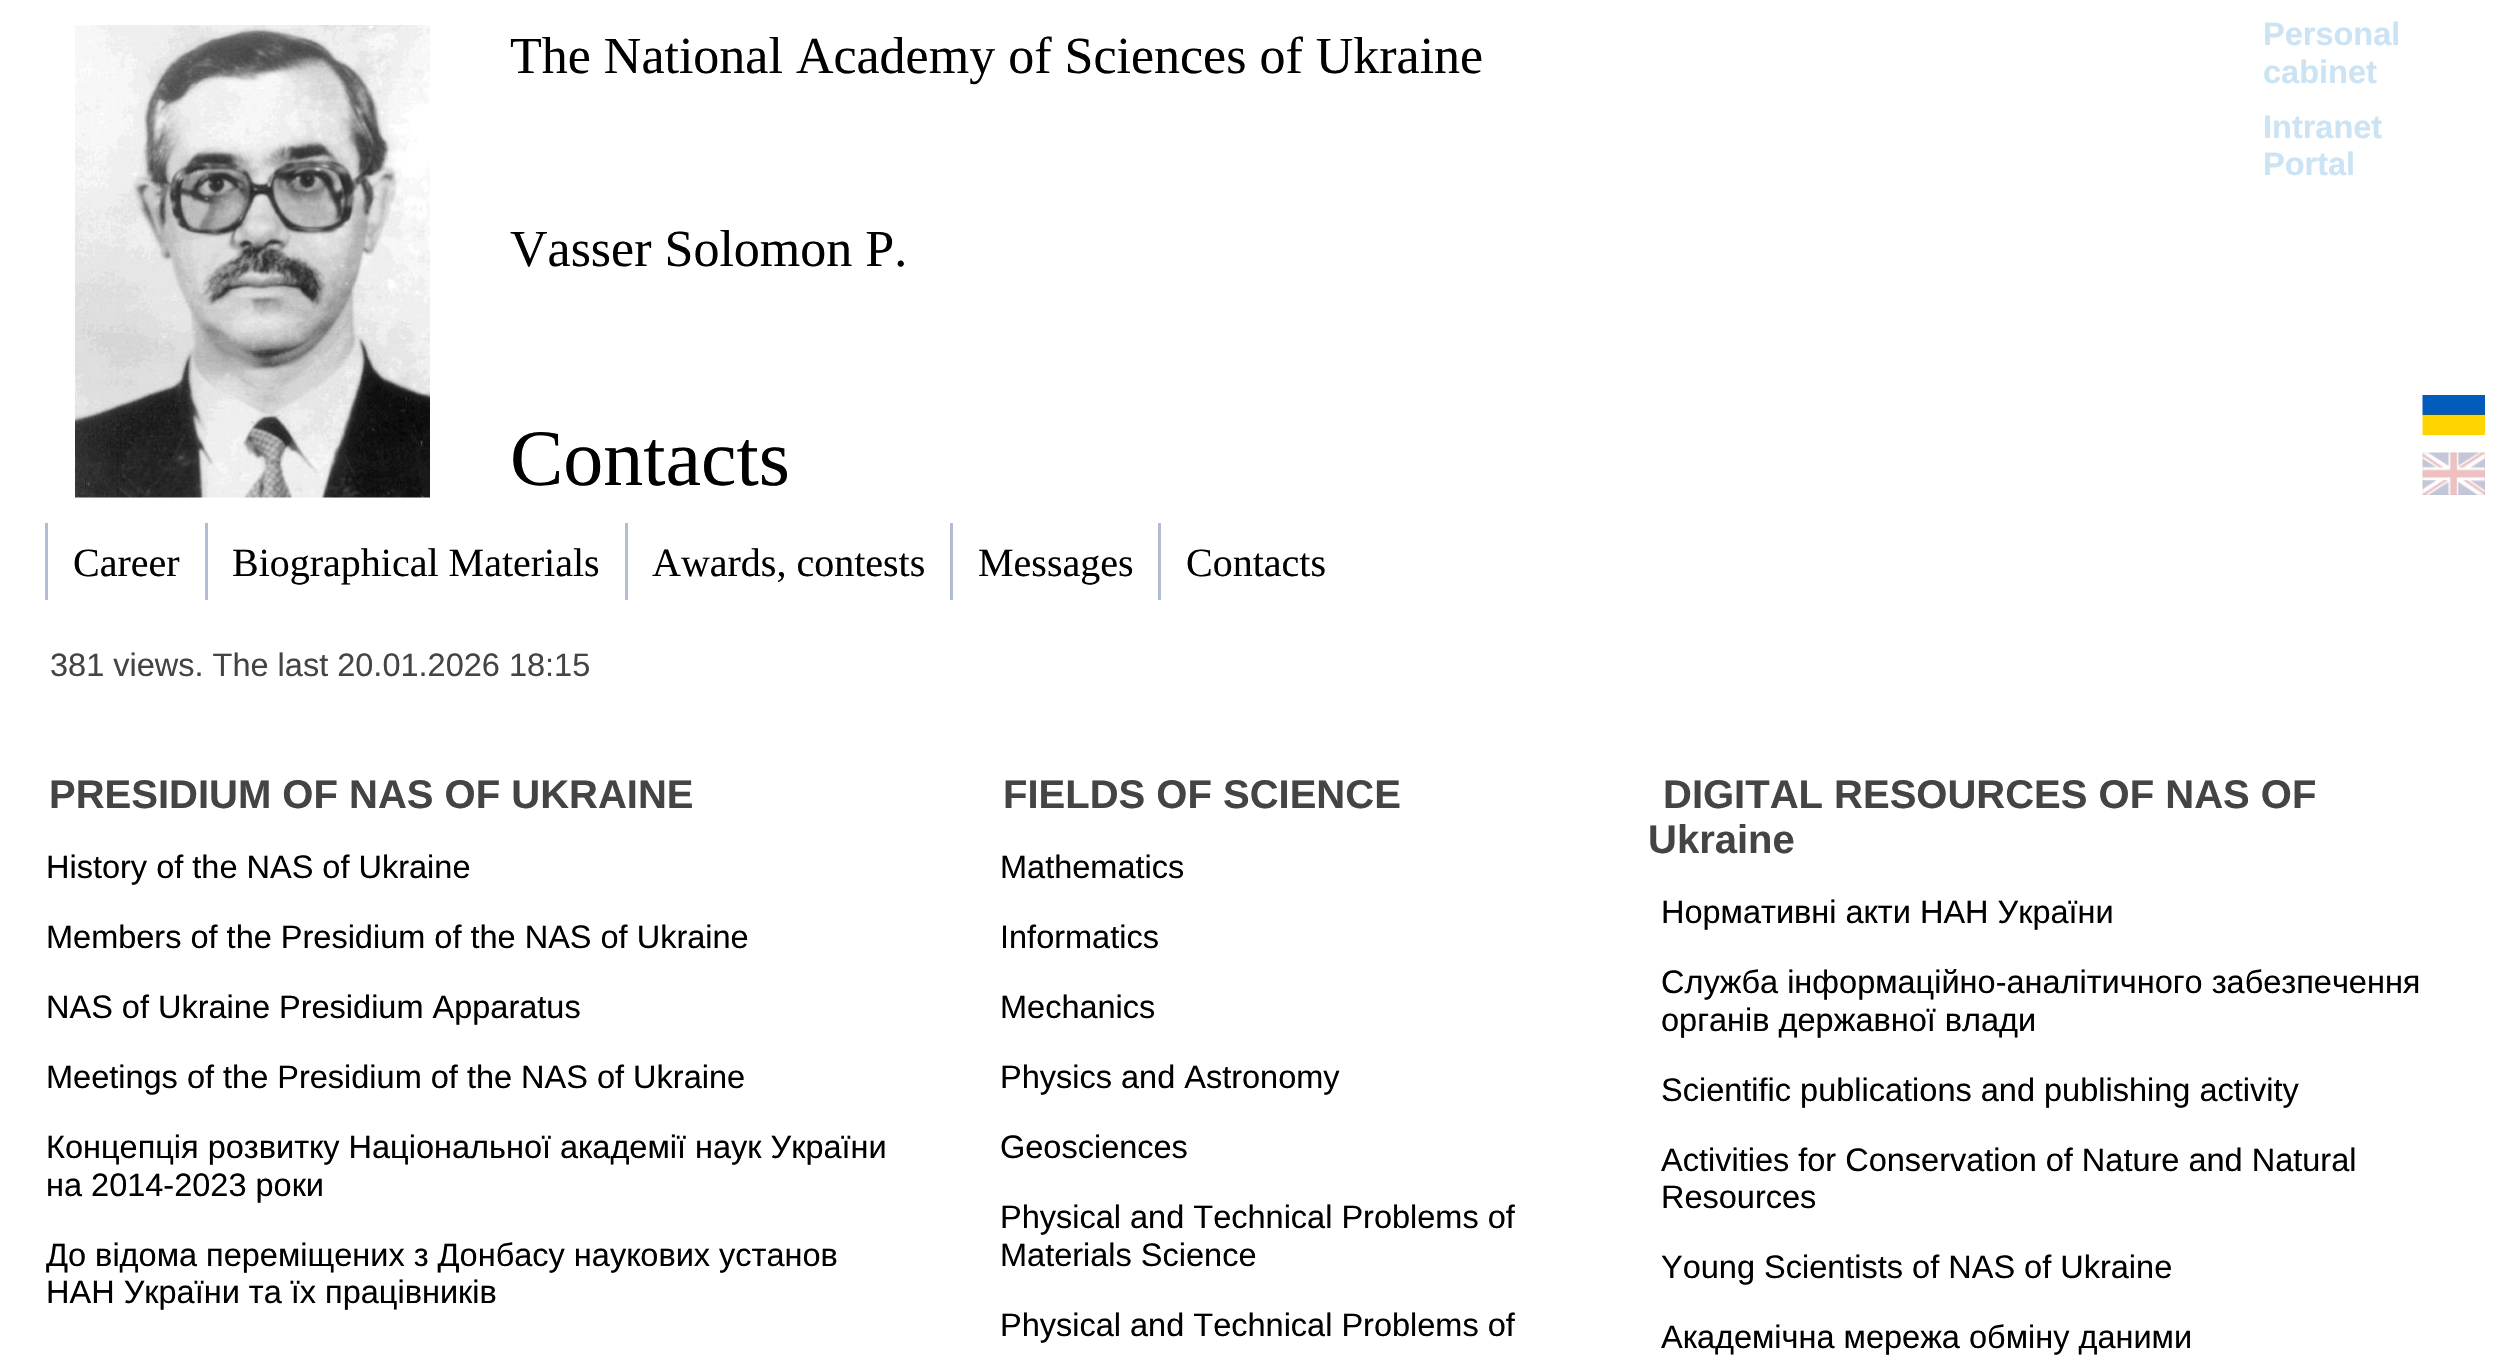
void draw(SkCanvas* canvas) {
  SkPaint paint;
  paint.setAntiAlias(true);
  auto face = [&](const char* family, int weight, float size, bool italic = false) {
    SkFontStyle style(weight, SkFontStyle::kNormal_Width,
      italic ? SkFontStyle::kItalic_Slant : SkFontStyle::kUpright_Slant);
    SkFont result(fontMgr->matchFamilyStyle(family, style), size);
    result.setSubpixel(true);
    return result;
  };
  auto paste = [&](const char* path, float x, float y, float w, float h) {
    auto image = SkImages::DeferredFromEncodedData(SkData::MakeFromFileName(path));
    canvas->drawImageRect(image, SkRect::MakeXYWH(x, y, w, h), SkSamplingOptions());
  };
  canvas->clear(0xffffffff);
  paste("img/1.png", 75, 25, 355, 473);
  paste("img/2.png", 2422, 395, 63, 40);
  paste("img/3.png", 2422, 452, 63, 43);
  {
    const struct { float x, y, w, h; SkColor color; } items[] = {
      {45, 523, 3, 77, 0xffb2bdd3},
      {205, 523, 3, 77, 0xffb2bdd3},
      {625, 523, 3, 77, 0xffb2bdd3},
      {950, 523, 3, 77, 0xffb2bdd3},
      {1158, 523, 3, 77, 0xffb2bdd3},
    };
    for (auto [x, y, w, h, color] : items) {
      paint.setColor(color);
      canvas->drawRect(SkRect::MakeXYWH(x, y, w, h), paint);
    }
  }
  auto f0 = face("Liberation Serif", 400, 52);
  paint.setColor(0xff000000);
  canvas->drawString("The National Academy of Sciences of Ukraine", 510, 73, f0, paint);
  auto f1 = face("Liberation Sans", 700, 32.5f);
  paint.setColor(0xffcce3f4);
  {
    const struct { const char* s; float x, y; } items[] = {
      {"Personal", 2263, 45},
      {"cabinet", 2263, 83},
      {"Intranet", 2263, 138},
      {"Portal", 2263, 175},
    };
    for (auto [s, x, y] : items) {
      canvas->drawString(s, x, y, f1, paint);
    }
  }
  paint.setColor(0xff000000);
  canvas->drawString("Vasser Solomon P.", 510, 266, f0, paint);
  auto f2 = face("Liberation Serif", 400, 80);
  canvas->drawString("Contacts", 510, 485, f2, paint);
  auto f3 = face("Liberation Serif", 400, 40);
  {
    const struct { const char* s; float x, y; } items[] = {
      {"Career", 73, 576},
      {"Biographical Materials", 232, 576},
      {"Awards, contests", 652, 576},
      {"Messages", 978, 576},
      {"Contacts", 1186, 576},
    };
    for (auto [s, x, y] : items) {
      canvas->drawString(s, x, y, f3, paint);
    }
  }
  auto f4 = face("Liberation Sans", 400, 32.5f);
  paint.setColor(0xff444444);
  canvas->drawString("381 views. The last 20.01.2026 18:15", 50, 676, f4, paint);
  auto f5 = face("Liberation Sans", 700, 40);
  canvas->drawString("PRESIDIUM OF NAS OF UKRAINE", 49, 808, f5, paint);
  paint.setColor(0xff000000);
  {
    const struct { const char* s; float x, y; } items[] = {
      {"History of the NAS of Ukraine", 46, 878},
      {"Members of the Presidium of the NAS of Ukraine", 46, 948},
      {"NAS of Ukraine Presidium Apparatus", 46, 1018},
      {"Meetings of the Presidium of the NAS of Ukraine", 46, 1088},
      {"Концепція розвитку Національної академії наук України", 46, 1158},
      {"на 2014-2023 роки", 46, 1196},
      {"До відома переміщених з Донбасу наукових установ", 46, 1266},
      {"НАН України та їх працівників", 46, 1303},
    };
    for (auto [s, x, y] : items) {
      canvas->drawString(s, x, y, f4, paint);
    }
  }
  paint.setColor(0xff444444);
  canvas->drawString("FIELDS OF SCIENCE", 1003, 808, f5, paint);
  paint.setColor(0xff000000);
  {
    const struct { const char* s; float x, y; } items[] = {
      {"Mathematics", 1000, 878},
      {"Informatics", 1000, 948},
      {"Mechanics", 1000, 1018},
      {"Physics and Astronomy", 1000, 1088},
      {"Geosciences", 1000, 1158},
      {"Physical and Technical Problems of", 1000, 1228},
      {"Materials Science", 1000, 1266},
      {"Physical and Technical Problems of", 1000, 1336},
    };
    for (auto [s, x, y] : items) {
      canvas->drawString(s, x, y, f4, paint);
    }
  }
  paint.setColor(0xff444444);
  canvas->drawString("DIGITAL RESOURCES OF NAS OF", 1663, 808, f5, paint);
  canvas->drawString("Ukraine", 1648, 853, f5, paint);
  paint.setColor(0xff000000);
  {
    const struct { const char* s; float x, y; } items[] = {
      {"Нормативні акти НАН України", 1661, 923},
      {"Служба інформаційно-аналітичного забезпечення", 1661, 993},
      {"органів державної влади", 1661, 1031},
      {"Scientific publications and publishing activity", 1661, 1101},
      {"Activities for Conservation of Nature and Natural", 1661, 1171},
      {"Resources", 1661, 1208},
      {"Young Scientists of NAS of Ukraine", 1661, 1278},
      {"Академічна мережа обміну даними", 1661, 1348},
    };
    for (auto [s, x, y] : items) {
      canvas->drawString(s, x, y, f4, paint);
    }
  }
}
